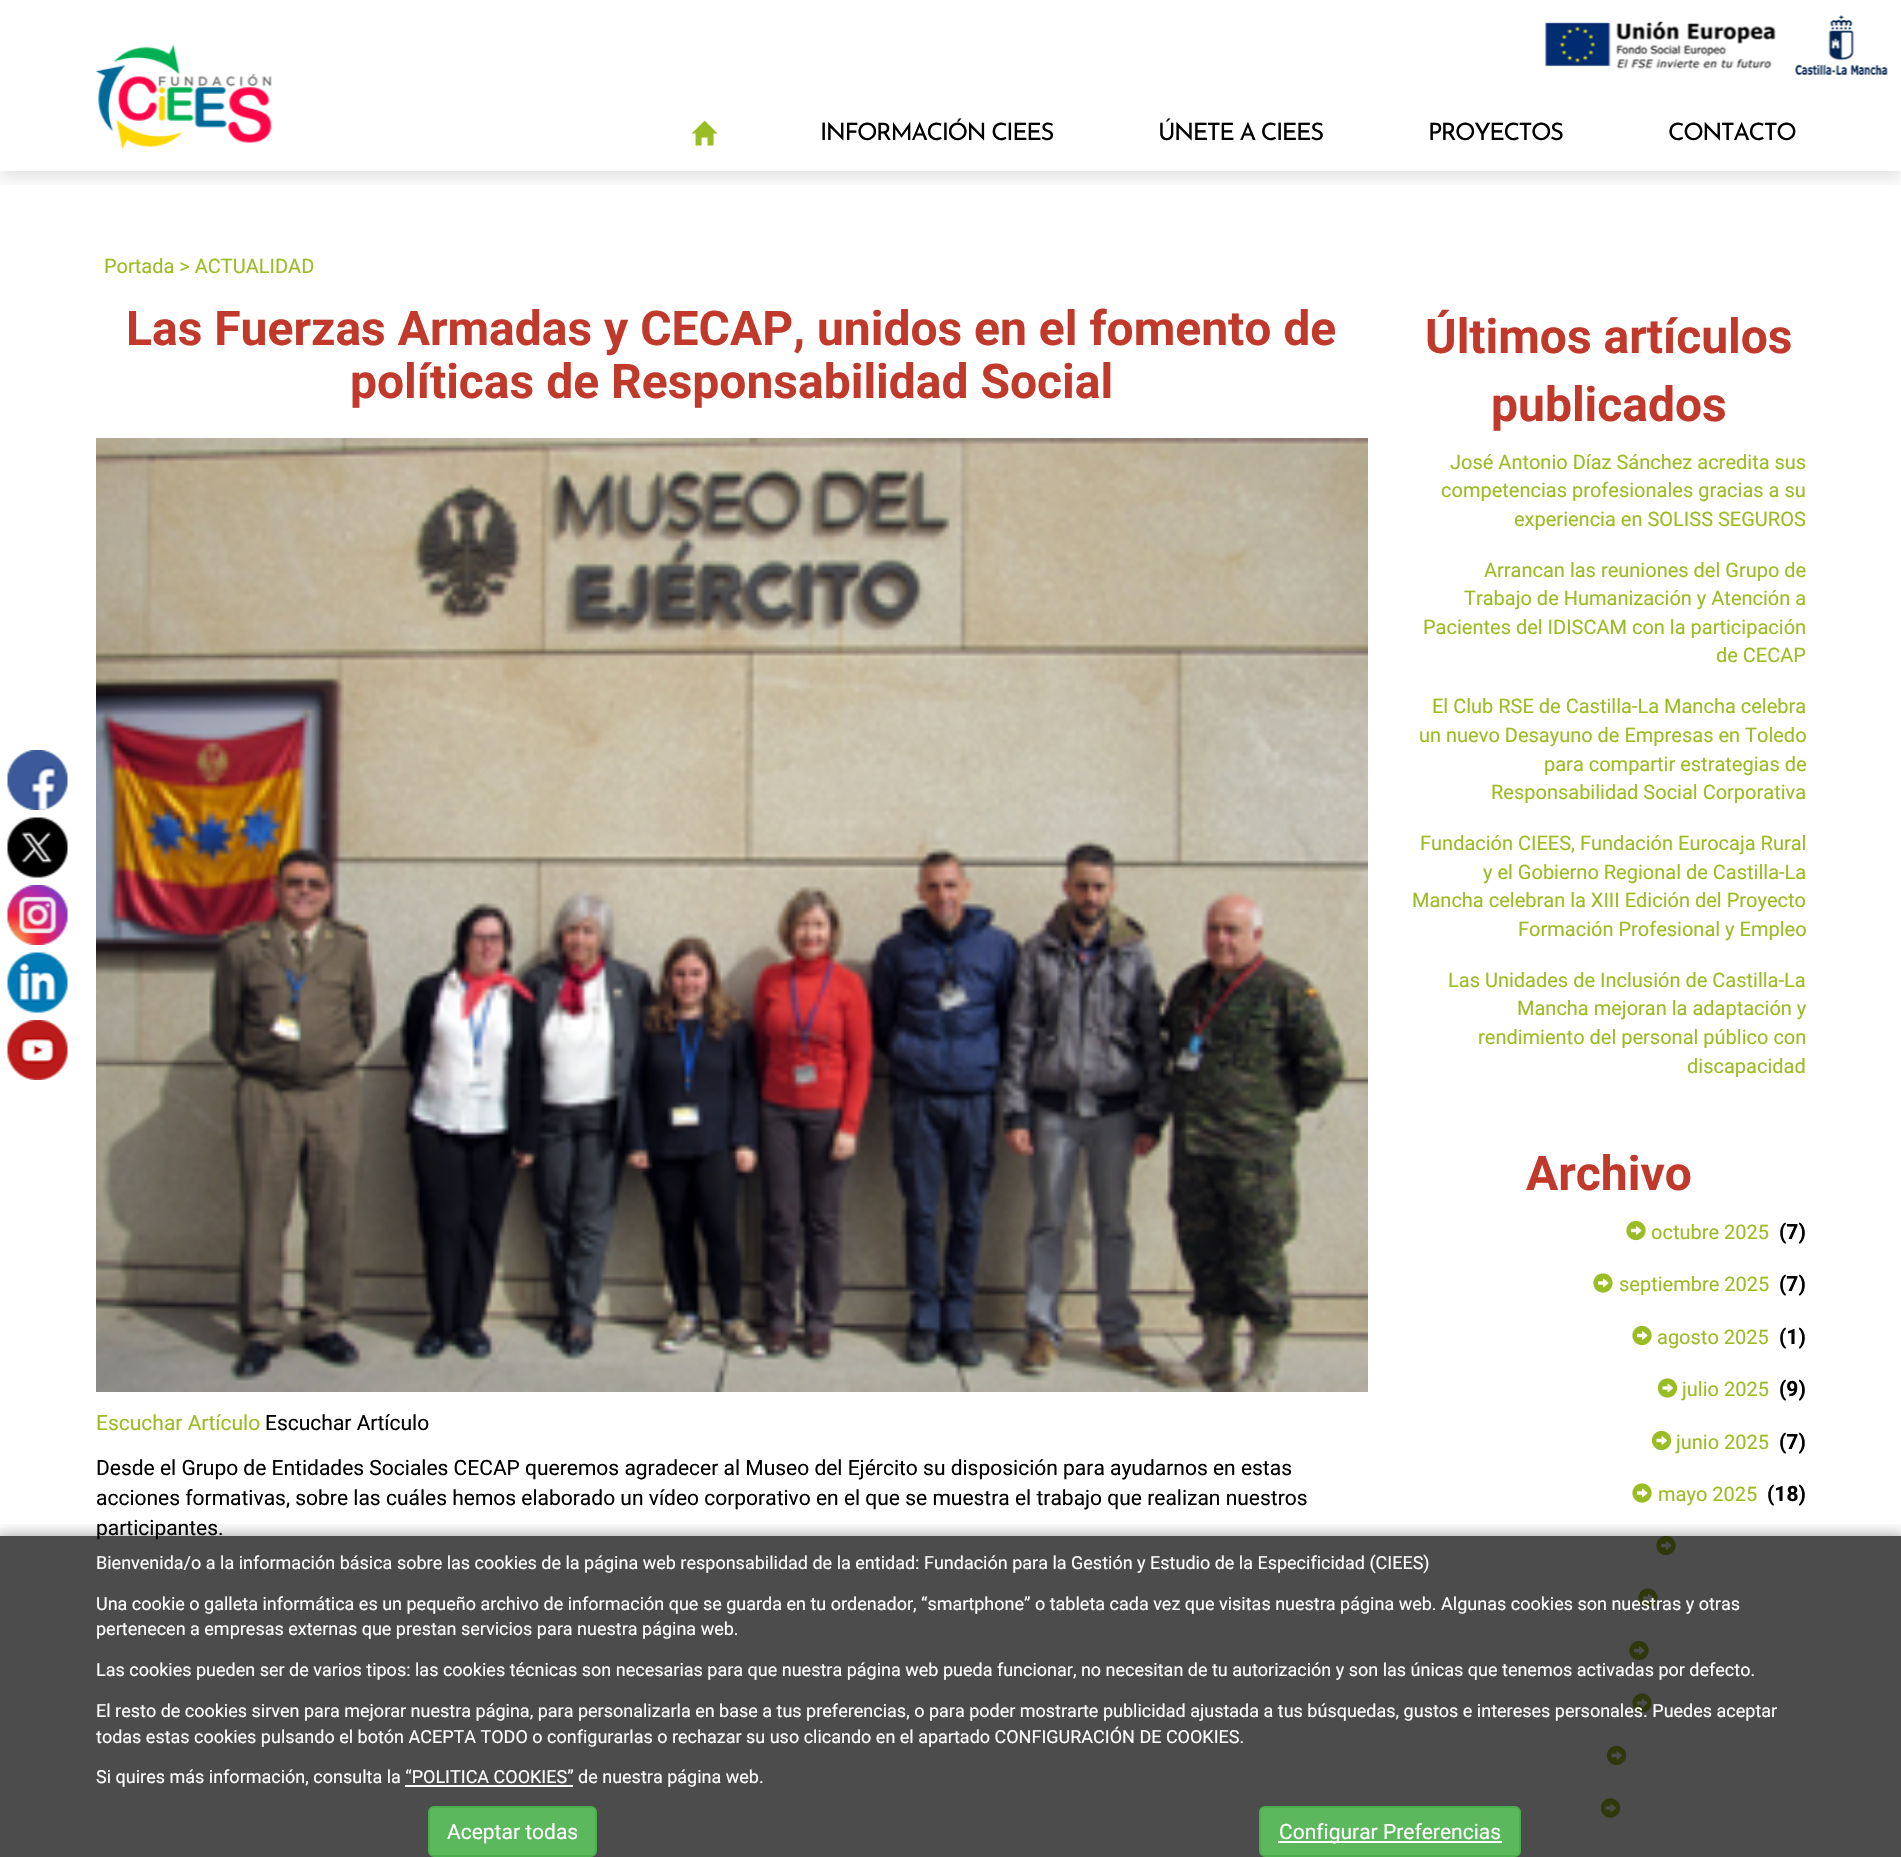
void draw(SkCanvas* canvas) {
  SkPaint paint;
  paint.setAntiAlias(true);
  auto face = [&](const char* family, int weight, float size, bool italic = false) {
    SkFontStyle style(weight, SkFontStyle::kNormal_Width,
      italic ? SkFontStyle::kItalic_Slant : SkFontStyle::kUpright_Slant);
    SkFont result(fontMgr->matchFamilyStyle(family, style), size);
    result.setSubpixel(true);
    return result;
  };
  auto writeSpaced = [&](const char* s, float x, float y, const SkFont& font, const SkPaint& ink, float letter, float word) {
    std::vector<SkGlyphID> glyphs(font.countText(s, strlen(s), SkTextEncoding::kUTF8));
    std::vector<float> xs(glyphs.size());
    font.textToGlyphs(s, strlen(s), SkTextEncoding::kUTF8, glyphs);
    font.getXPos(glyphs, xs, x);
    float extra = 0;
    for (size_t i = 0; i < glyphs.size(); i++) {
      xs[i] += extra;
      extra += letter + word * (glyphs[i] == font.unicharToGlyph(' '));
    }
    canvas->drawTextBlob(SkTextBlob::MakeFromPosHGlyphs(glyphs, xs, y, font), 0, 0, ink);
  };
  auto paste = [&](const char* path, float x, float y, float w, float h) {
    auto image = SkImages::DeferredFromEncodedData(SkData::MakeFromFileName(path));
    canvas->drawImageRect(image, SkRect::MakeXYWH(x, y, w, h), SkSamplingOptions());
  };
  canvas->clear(0xffffffff);
  canvas->save();
  canvas->clipRect(SkRect::MakeXYWH(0, 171, 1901, 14));
  paint.setColor(0x1a000000);
  paint.setMaskFilter(SkMaskFilter::MakeBlur(kNormal_SkBlurStyle, 7.5f));
  canvas->drawRect(SkRect::MakeXYWH(0, 8, 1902, 171), paint);
  paint.setMaskFilter(nullptr);
  canvas->restore();
  paste("img/1.png", 1544, 20, 232, 49);
  paste("img/2.png", 1795, 15, 93, 60);
  paste("img/3.png", 96, 45, 176, 104);
  paste("img/4.png", 691, 120, 27, 26);
  paste("img/5.png", 7, 750, 61, 60);
  paste("img/6.png", 7, 817, 61, 61);
  paste("img/7.png", 7, 885, 61, 60);
  paste("img/8.png", 7, 952, 61, 61);
  paste("img/9.png", 7, 1020, 61, 60);
  paste("img/10.png", 96, 438, 1272, 954);
  paste("img/11.png", 1626, 1220, 20, 21);
  paste("img/12.png", 1593, 1273, 20, 20);
  paste("img/11.png", 1632, 1325, 20, 21);
  paste("img/13.png", 1657, 1378, 21, 20);
  paste("img/14.png", 1651, 1430, 21, 21);
  paste("img/12.png", 1632, 1483, 20, 20);
  paste("img/11.png", 1656, 1535, 20, 21);
  paste("img/12.png", 1638, 1588, 20, 20);
  paste("img/11.png", 1629, 1640, 20, 21);
  paste("img/12.png", 1632, 1693, 20, 20);
  paste("img/14.png", 1606, 1745, 21, 21);
  paste("img/13.png", 1600, 1798, 21, 20);
  canvas->save();
  canvas->clipRect(SkRect::MakeXYWH(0, 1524, 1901, 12));
  paint.setColor(0x66000000);
  paint.setMaskFilter(SkMaskFilter::MakeBlur(kNormal_SkBlurStyle, 7.5f));
  canvas->drawRect(SkRect::MakeXYWH(-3, 1536, 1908, 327), paint);
  paint.setMaskFilter(nullptr);
  canvas->restore();
  auto f0 = face("Josefin Sans", 400, 24);
  paint.setColor(0xff000000);
  {
    const struct { const char* s; float x, y; } items[] = {
      {"INFORMACIÓN CIEES", 820, 140},
      {"ÚNETE A CIEES", 1158, 140},
      {"PROYECTOS", 1428, 140},
      {"CONTACTO", 1668, 140},
    };
    for (auto [s, x, y] : items) {
      writeSpaced(s, x, y, f0, paint, -1.5f, 0);
    }
  }
  auto f1 = face("Roboto", 400, 20);
  paint.setColor(0xff9abc24);
  canvas->drawString("Portada > ACTUALIDAD", 104, 273, f1, paint);
  auto f2 = face("Roboto", 700, 48);
  paint.setColor(0xffc0392b);
  canvas->drawString("Las Fuerzas Armadas y CECAP, unidos en el fomento de", 126, 345, f2, paint);
  canvas->drawString("políticas de Responsabilidad Social", 350, 398, f2, paint);
  auto f3 = face("Roboto", 400, 21);
  paint.setColor(0xff9abc24);
  canvas->drawString("Escuchar Artículo", 96, 1430, f3, paint);
  paint.setColor(0xff000000);
  {
    const struct { const char* s; float x, y; } items[] = {
      {"Escuchar Artículo", 265, 1430},
      {"Desde el Grupo de Entidades Sociales CECAP queremos agradecer al Museo del Ejército su disposición para ayudarnos en estas", 96, 1475},
      {"acciones formativas, sobre las cuáles hemos elaborado un vídeo corporativo en el que se muestra el trabajo que realizan nuestros", 96, 1505},
      {"participantes.", 96, 1535},
    };
    for (auto [s, x, y] : items) {
      canvas->drawString(s, x, y, f3, paint);
    }
  }
  paint.setColor(0xffc0392b);
  canvas->drawString("Últimos artículos", 1425, 353, f2, paint);
  canvas->drawString("publicados", 1491, 421, f2, paint);
  paint.setColor(0xff9abc24);
  {
    const struct { const char* s; float x, y; } items[] = {
      {"José Antonio Díaz Sánchez acredita sus", 1450, 469},
      {"competencias profesionales gracias a su", 1441, 497},
      {"experiencia en SOLISS SEGUROS", 1514, 526},
      {"Arrancan las reuniones del Grupo de", 1484, 577},
      {"Trabajo de Humanización y Atención a", 1464, 605},
      {"Pacientes del IDISCAM con la participación", 1423, 634},
      {"de CECAP", 1716, 662},
      {"El Club RSE de Castilla-La Mancha celebra", 1432, 713},
      {"un nuevo Desayuno de Empresas en Toledo", 1419, 742},
      {"para compartir estrategias de", 1544, 771},
      {"Responsabilidad Social Corporativa", 1491, 799},
      {"Fundación CIEES, Fundación Eurocaja Rural", 1420, 850},
      {"y el Gobierno Regional de Castilla-La", 1483, 879},
      {"Mancha celebran la XIII Edición del Proyecto", 1412, 907},
      {"Formación Profesional y Empleo", 1518, 936},
      {"Las Unidades de Inclusión de Castilla-La", 1448, 987},
      {"Mancha mejoran la adaptación y", 1517, 1015},
      {"rendimiento del personal público con", 1478, 1044},
      {"discapacidad", 1687, 1073},
    };
    for (auto [s, x, y] : items) {
      canvas->drawString(s, x, y, f1, paint);
    }
  }
  paint.setColor(0xffc0392b);
  canvas->drawString("Archivo", 1526, 1190, f2, paint);
  paint.setColor(0xff9abc24);
  canvas->drawString("octubre 2025", 1651, 1239, f1, paint);
  auto f4 = face("Roboto", 700, 21);
  paint.setColor(0xff000000);
  canvas->drawString("(7)", 1779, 1239, f4, paint);
  paint.setColor(0xff9abc24);
  canvas->drawString("septiembre 2025", 1619, 1291, f1, paint);
  paint.setColor(0xff000000);
  canvas->drawString("(7)", 1779, 1291, f4, paint);
  paint.setColor(0xff9abc24);
  canvas->drawString("agosto 2025", 1657, 1344, f1, paint);
  paint.setColor(0xff000000);
  canvas->drawString("(1)", 1779, 1344, f4, paint);
  paint.setColor(0xff9abc24);
  canvas->drawString("julio 2025", 1682, 1396, f1, paint);
  paint.setColor(0xff000000);
  canvas->drawString("(9)", 1779, 1396, f4, paint);
  paint.setColor(0xff9abc24);
  canvas->drawString("junio 2025", 1676, 1449, f1, paint);
  paint.setColor(0xff000000);
  canvas->drawString("(7)", 1779, 1449, f4, paint);
  paint.setColor(0xff9abc24);
  canvas->drawString("mayo 2025", 1658, 1501, f1, paint);
  paint.setColor(0xff000000);
  canvas->drawString("(18)", 1767, 1501, f4, paint);
  paint.setColor(0xb3000000);
  canvas->drawRect(SkRect::MakeXYWH(0, 1536, 1901, 321), paint);
  auto f5 = face("Roboto", 400, 18);
  paint.setColor(0xffffffff);
  {
    const struct { const char* s; float x, y; } items[] = {
      {"Bienvenida/o a la información básica sobre las cookies de la página web responsabilidad de la entidad: Fundación para la Gestión y Estudio de la Especificidad (CIEES)", 96, 1569},
      {"Una cookie o galleta informática es un pequeño archivo de información que se guarda en tu ordenador, “smartphone” o tableta cada vez que visitas nuestra página web. Algunas cookies son nuestras y otras", 96, 1610},
      {"pertenecen a empresas externas que prestan servicios para nuestra página web.", 96, 1635},
      {"Las cookies pueden ser de varios tipos: las cookies técnicas son necesarias para que nuestra página web pueda funcionar, no necesitan de tu autorización y son las únicas que tenemos activadas por defecto.", 96, 1676},
      {"El resto de cookies sirven para mejorar nuestra página, para personalizarla en base a tus preferencias, o para poder mostrarte publicidad ajustada a tus búsquedas, gustos e intereses personales. Puedes aceptar", 96, 1717},
      {"todas estas cookies pulsando el botón ACEPTA TODO o configurarlas o rechazar su uso clicando en el apartado CONFIGURACIÓN DE COOKIES.", 96, 1743},
      {"Si quires más información, consulta la “POLITICA COOKIES” de nuestra página web.", 96, 1783},
    };
    for (auto [s, x, y] : items) {
      canvas->drawString(s, x, y, f5, paint);
    }
  }
  canvas->drawRect(SkRect::MakeXYWH(405, 1785, 168, 2), paint);
  paint.setColor(0xff5cb85c);
  canvas->drawRoundRect(SkRect::MakeXYWH(429, 1807, 167, 49), 5, 5, paint);
  paint.setStroke(true);
  paint.setStrokeWidth(2);
  paint.setColor(0xff4cae4c);
  canvas->drawRoundRect(SkRect::MakeXYWH(429, 1807, 167, 49), 5, 5, paint);
  paint.setStroke(false);
  paint.setColor(0xffffffff);
  canvas->drawString("Aceptar todas", 447, 1839, f3, paint);
  paint.setColor(0xff5cb85c);
  canvas->drawRoundRect(SkRect::MakeXYWH(1260, 1807, 260, 49), 5, 5, paint);
  paint.setStroke(true);
  paint.setColor(0xff4cae4c);
  canvas->drawRoundRect(SkRect::MakeXYWH(1260, 1807, 260, 49), 5, 5, paint);
  paint.setStroke(false);
  paint.setColor(0xffffffff);
  canvas->drawRect(SkRect::MakeXYWH(1278, 1841, 224, 2), paint);
  canvas->drawString("Configurar Preferencias", 1279, 1839, f3, paint);
}
